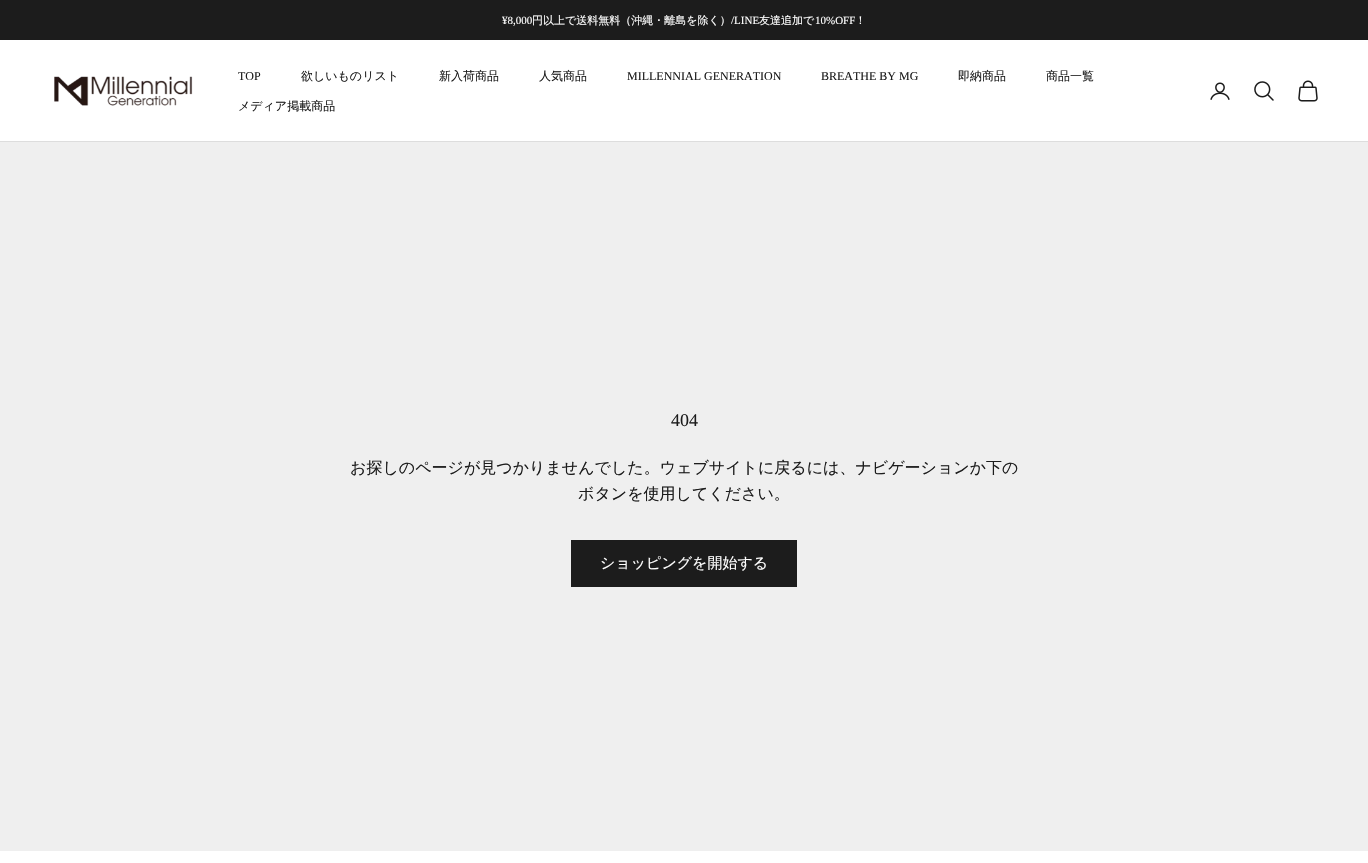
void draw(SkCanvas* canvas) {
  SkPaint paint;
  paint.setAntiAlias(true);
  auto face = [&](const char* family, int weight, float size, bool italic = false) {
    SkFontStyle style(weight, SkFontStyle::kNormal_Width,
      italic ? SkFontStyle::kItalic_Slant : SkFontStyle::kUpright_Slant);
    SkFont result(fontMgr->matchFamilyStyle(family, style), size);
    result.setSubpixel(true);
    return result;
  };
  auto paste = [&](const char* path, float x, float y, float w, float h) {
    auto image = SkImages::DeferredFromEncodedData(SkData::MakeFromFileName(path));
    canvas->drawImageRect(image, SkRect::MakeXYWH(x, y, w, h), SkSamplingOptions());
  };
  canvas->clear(0xffefefef);
  {
    const struct { float x, y, w, h; SkColor color; } items[] = {
      {0, 0, 1368, 40, 0xff1c1c1c},
      {0, 40, 1368, 101, 0xffffffff},
      {0, 141, 1368, 1, 0xffdddddd},
    };
    for (auto [x, y, w, h, color] : items) {
      paint.setColor(color);
      canvas->drawRect(SkRect::MakeXYWH(x, y, w, h), paint);
    }
  }
  paste("img/1.png", 54, 76, 139, 30);
  paste("img/2.png", 1210, 82, 20, 18);
  paste("img/3.png", 1254, 81, 20, 20);
  paste("img/4.png", 1298, 80, 20, 22);
  paint.setColor(0xff1c1c1c);
  canvas->drawRect(SkRect::MakeXYWH(571.5f, 540.5f, 225, 46), paint);
  paint.setStroke(true);
  paint.setStrokeWidth(1);
  canvas->drawRect(SkRect::MakeXYWH(571.5f, 540.5f, 225, 46), paint);
  paint.setStroke(false);
  paint.setColor(0xffffffff);
  canvas->drawRect(SkRect::MakeXYWH(0, 851, 1368, 12), paint);
  auto f0 = face("Liberation Serif", 400, 11);
  canvas->drawString("¥8,000", 502, 24, f0, paint);
  auto f1 = face("WenQuanYi Zen Hei", 500, 11);
  canvas->drawString("円以上で送料無料（沖縄・離島を除く）", 532, 24, f1, paint);
  canvas->drawString("/LINE", 731, 24, f0, paint);
  canvas->drawString("友達追加で", 759, 24, f1, paint);
  canvas->drawString("10%OFF", 815, 24, f0, paint);
  canvas->drawString("！", 855, 24, f1, paint);
  auto f2 = face("Liberation Serif", 400, 12);
  paint.setColor(0xff1c1c1c);
  canvas->drawString("TOP", 238, 80, f2, paint);
  auto f3 = face("WenQuanYi Zen Hei", 500, 12);
  {
    const struct { const char* s; float x, y; } items[] = {
      {"欲しいものリスト", 301, 80},
      {"新入荷商品", 439, 80},
      {"人気商品", 539, 80},
    };
    for (auto [s, x, y] : items) {
      canvas->drawString(s, x, y, f3, paint);
    }
  }
  canvas->drawString("MILLENNIAL GENERATION", 627, 80, f2, paint);
  canvas->drawString("BREATHE BY MG", 821, 80, f2, paint);
  {
    const struct { const char* s; float x, y; } items[] = {
      {"即納商品", 958, 80},
      {"商品一覧", 1046, 80},
      {"メディア掲載商品", 238, 110},
    };
    for (auto [s, x, y] : items) {
      canvas->drawString(s, x, y, f3, paint);
    }
  }
  auto f4 = face("Liberation Serif", 400, 18);
  canvas->drawString("404", 671, 426, f4, paint);
  auto f5 = face("WenQuanYi Zen Hei", 500, 16);
  canvas->drawString("お探しのページが見つかりませんでした。ウェブサイトに戻るには、ナビゲーションか下の", 350, 473, f5, paint);
  canvas->drawString("ボタンを使用してください。", 578, 499, f5, paint);
  auto f6 = face("WenQuanYi Zen Hei", 500, 15);
  paint.setColor(0xffffffff);
  canvas->drawString("ショッピングを開始する", 600, 568, f6, paint);
}
